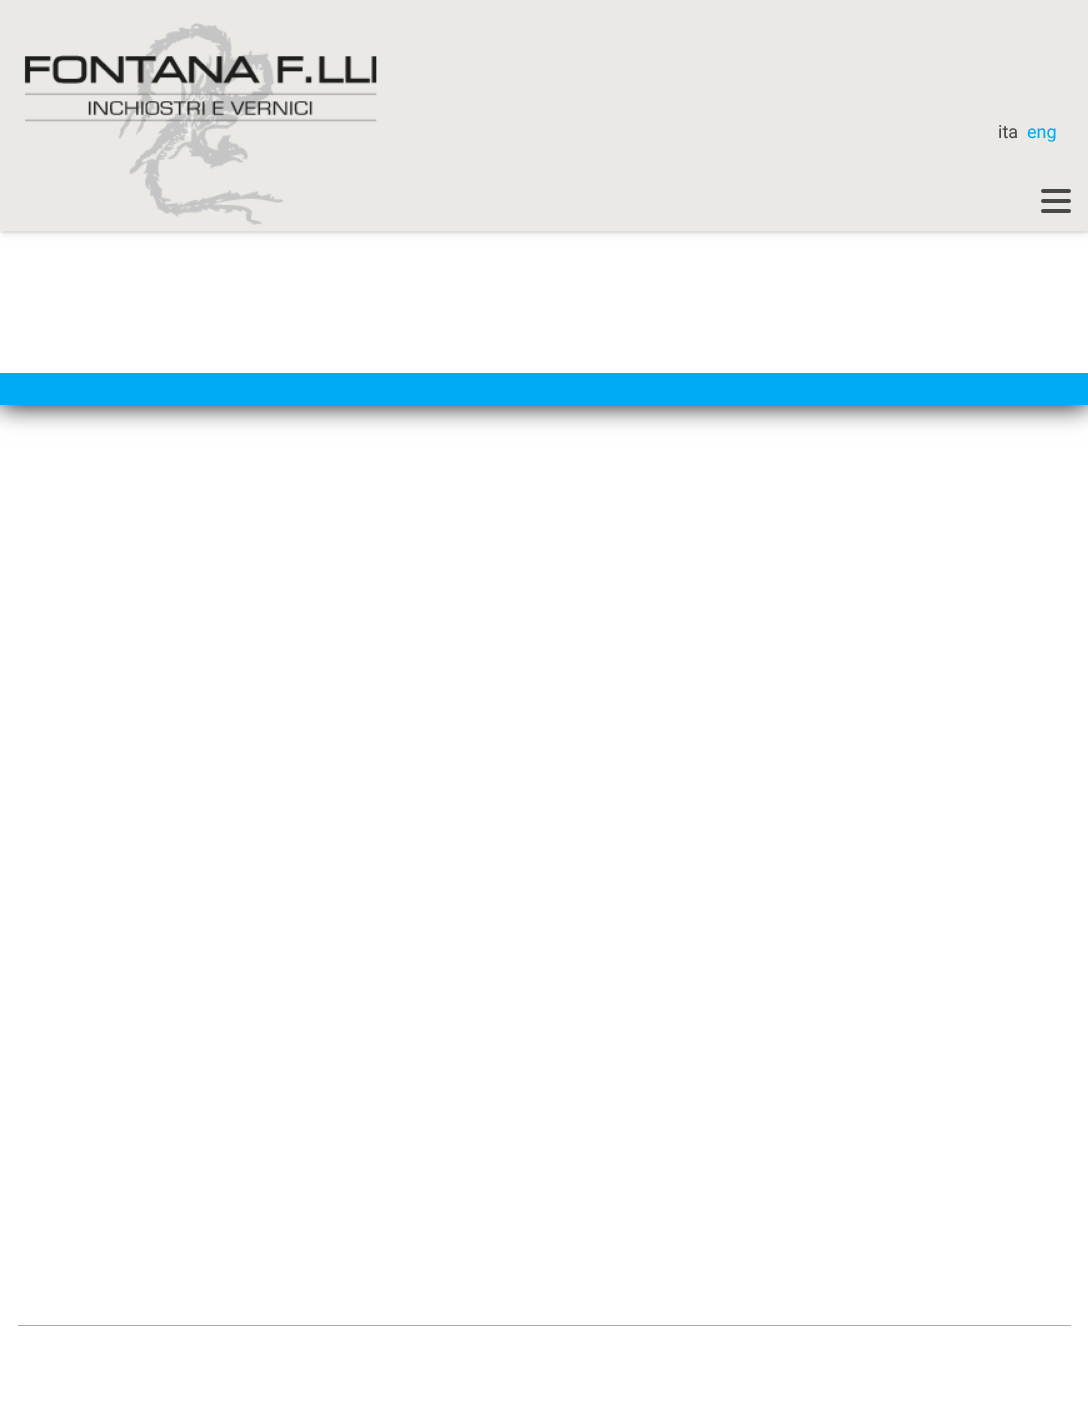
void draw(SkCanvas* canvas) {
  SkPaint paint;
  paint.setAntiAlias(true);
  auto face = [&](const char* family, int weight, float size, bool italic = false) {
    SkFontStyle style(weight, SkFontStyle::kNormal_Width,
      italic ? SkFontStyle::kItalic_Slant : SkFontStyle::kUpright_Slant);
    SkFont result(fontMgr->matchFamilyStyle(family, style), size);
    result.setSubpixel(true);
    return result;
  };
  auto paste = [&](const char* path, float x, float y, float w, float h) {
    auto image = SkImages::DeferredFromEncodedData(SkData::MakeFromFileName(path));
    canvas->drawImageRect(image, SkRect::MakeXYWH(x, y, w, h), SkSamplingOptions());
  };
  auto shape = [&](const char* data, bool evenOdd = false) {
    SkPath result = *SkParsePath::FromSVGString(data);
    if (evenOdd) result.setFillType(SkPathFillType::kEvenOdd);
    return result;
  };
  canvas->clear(0xffffffff);
  paint.setColor(0x0d000000);
  paint.setMaskFilter(SkMaskFilter::MakeBlur(kNormal_SkBlurStyle, 0.5f));
  canvas->drawRect(SkRect::MakeXYWH(1, 16, 1087, 217), paint);
  paint.setMaskFilter(nullptr);
  paint.setColor(0xffeae9e6);
  canvas->drawRect(SkRect::MakeXYWH(0, 0, 1088, 13), paint);
  paint.setColor(0x1a000000);
  paint.setMaskFilter(SkMaskFilter::MakeBlur(kNormal_SkBlurStyle, 3));
  canvas->drawRect(SkRect::MakeXYWH(1, 18, 1087, 216), paint);
  paint.setMaskFilter(nullptr);
  canvas->save();
  canvas->clipPath(shape("M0 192H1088V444H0ZM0 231H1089V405H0Z", true), true);
  paint.setColor(0xff000000);
  paint.setMaskFilter(SkMaskFilter::MakeBlur(kNormal_SkBlurStyle, 12.5f));
  canvas->drawRect(SkRect::MakeXYWH(0, 231, 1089, 174), paint);
  paint.setMaskFilter(nullptr);
  canvas->restore();
  paint.setColor(0xffeae9e6);
  canvas->drawRect(SkRect::MakeXYWH(0, 13, 1088, 218), paint);
  paste("img/1.png", 24, 22, 353, 203);
  paint.setColor(0xff494948);
  canvas->drawRoundRect(SkRect::MakeXYWH(1041, 199, 30, 4), 2, 2, paint);
  canvas->drawRoundRect(SkRect::MakeXYWH(1041, 189, 30, 4), 2, 2, paint);
  canvas->drawRoundRect(SkRect::MakeXYWH(1041, 209, 30, 4), 2, 2, paint);
  paint.setColor(0xff00abf6);
  canvas->drawRect(SkRect::MakeXYWH(0, 373, 1088, 32), paint);
  paint.setColor(0xffababab);
  canvas->drawRect(SkRect::MakeXYWH(18, 1325, 1053, 1), paint);
  auto f0 = face("Roboto", 400, 18);
  paint.setColor(0xff494948);
  canvas->drawString("ita", 998, 138, f0, paint);
  paint.setColor(0xff00abf6);
  canvas->drawString("eng", 1027, 138, f0, paint);
}
